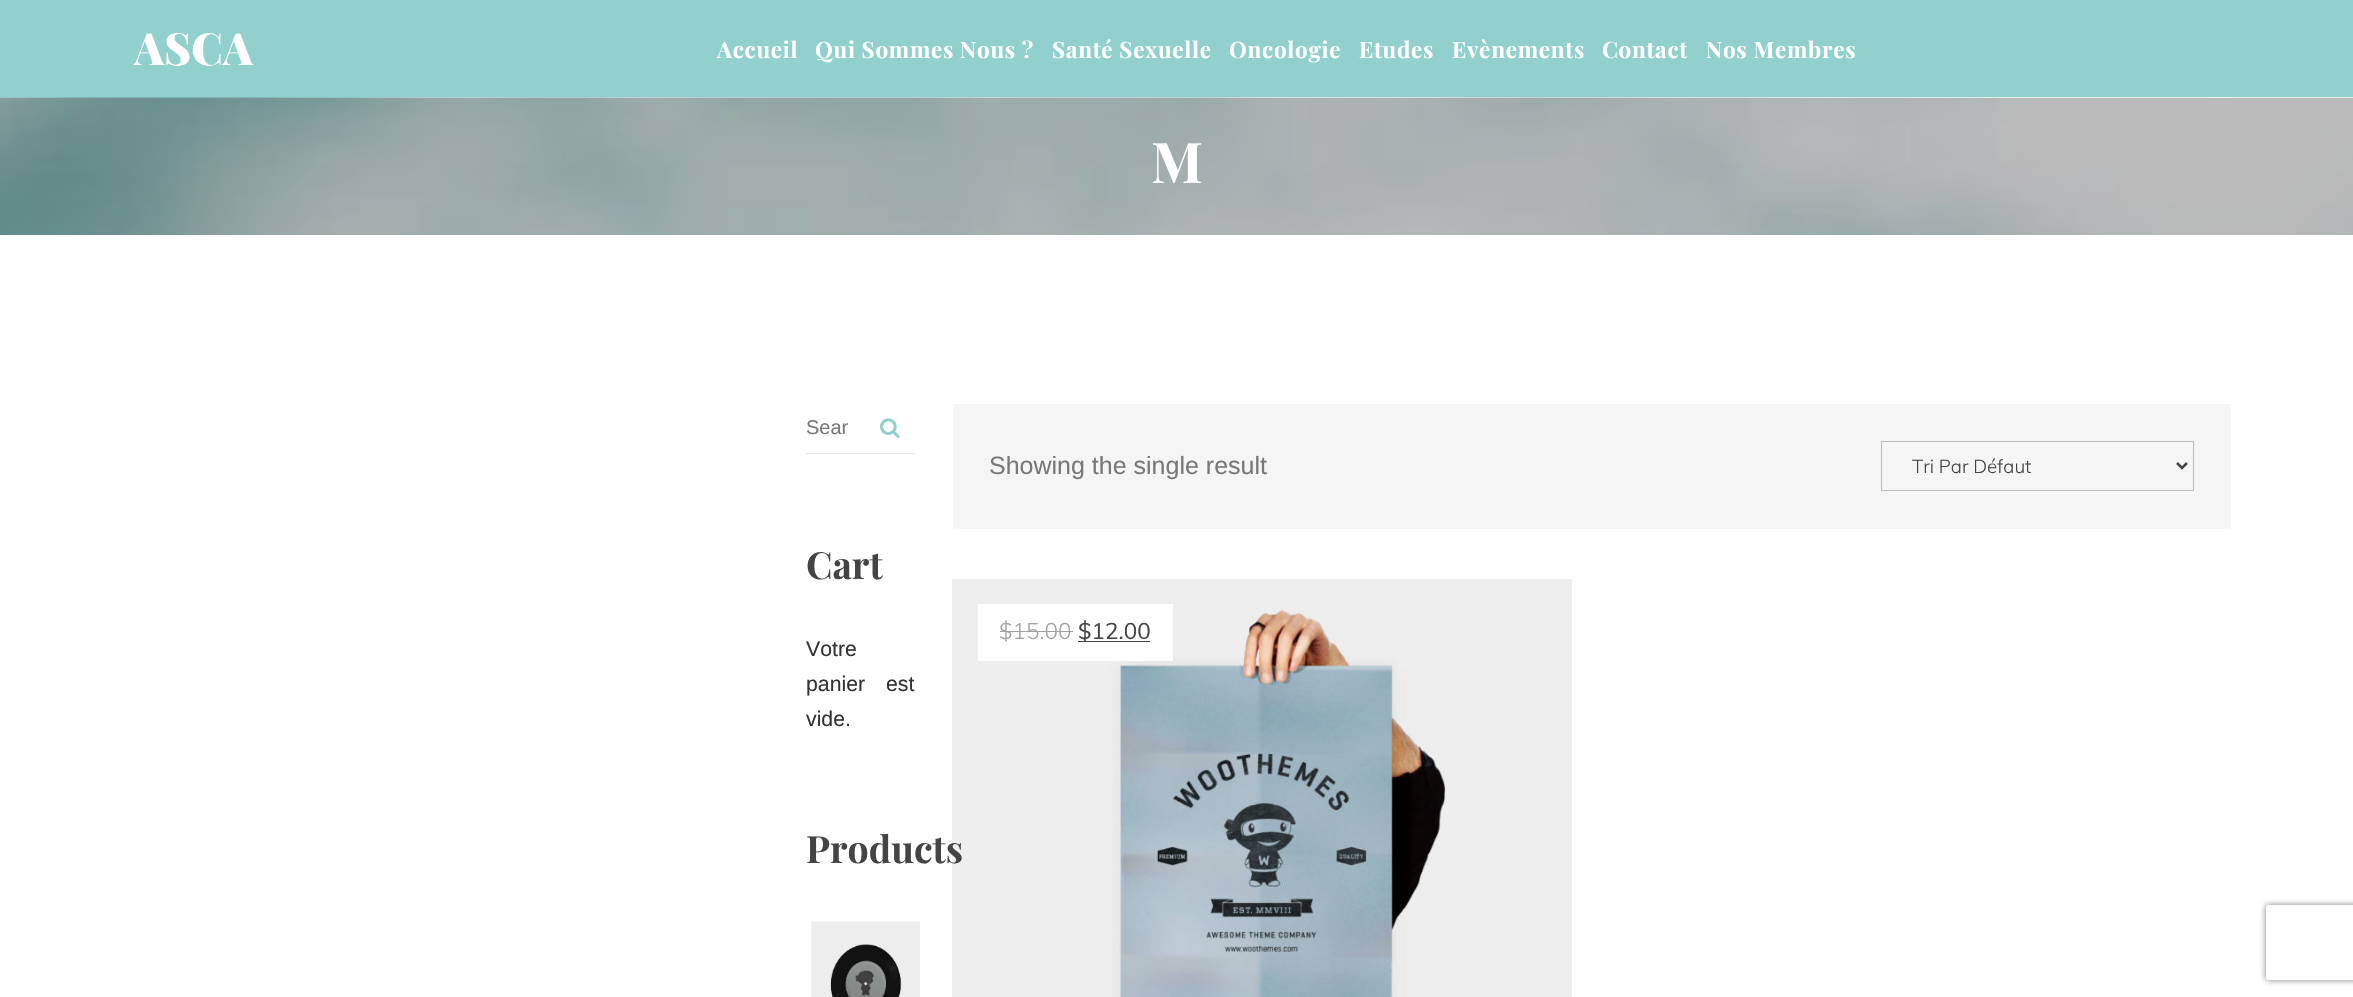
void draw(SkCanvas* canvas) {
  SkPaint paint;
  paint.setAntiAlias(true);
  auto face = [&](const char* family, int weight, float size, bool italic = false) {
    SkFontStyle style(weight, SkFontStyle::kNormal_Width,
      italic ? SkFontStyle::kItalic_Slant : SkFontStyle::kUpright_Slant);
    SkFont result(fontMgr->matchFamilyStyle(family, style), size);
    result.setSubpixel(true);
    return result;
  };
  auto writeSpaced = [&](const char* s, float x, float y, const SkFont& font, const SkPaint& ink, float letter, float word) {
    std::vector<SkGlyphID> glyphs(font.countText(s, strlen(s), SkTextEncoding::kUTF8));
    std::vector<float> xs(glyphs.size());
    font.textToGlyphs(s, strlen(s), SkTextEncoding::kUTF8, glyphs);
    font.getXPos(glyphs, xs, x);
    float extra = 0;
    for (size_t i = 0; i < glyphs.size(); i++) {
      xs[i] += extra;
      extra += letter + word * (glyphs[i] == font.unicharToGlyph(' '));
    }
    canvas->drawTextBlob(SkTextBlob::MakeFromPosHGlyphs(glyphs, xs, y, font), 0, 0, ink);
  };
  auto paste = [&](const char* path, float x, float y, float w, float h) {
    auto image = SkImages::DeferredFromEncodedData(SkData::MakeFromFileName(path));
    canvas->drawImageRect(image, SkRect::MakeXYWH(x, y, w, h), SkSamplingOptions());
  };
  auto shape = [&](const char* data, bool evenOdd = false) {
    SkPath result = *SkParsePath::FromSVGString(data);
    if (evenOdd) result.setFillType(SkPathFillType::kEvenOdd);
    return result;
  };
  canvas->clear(0xffffffff);
  paint.setColor(0xff91d0cc);
  canvas->drawRect(SkRect::MakeXYWH(0, 0, 2353, 97), paint);
  paste("img/1.png", 132, 33, 122, 33);
  paste("img/2.png", 0, 97, 2353, 138);
  paint.setColor(0xffe6e6e6);
  canvas->drawRect(SkRect::MakeXYWH(806, 453, 109, 1), paint);
  paste("img/3.png", 880, 418, 20, 20);
  paste("img/4.png", 811, 921, 109, 76);
  paint.setColor(0xfff5f5f5);
  canvas->drawRect(SkRect::MakeXYWH(953, 404, 1278, 125), paint);
  paint.setStroke(true);
  paint.setStrokeWidth(1);
  paint.setColor(0xffbbbbbb);
  canvas->drawRect(SkRect::MakeXYWH(1881.5f, 441.5f, 312, 49), paint);
  paint.setStrokeWidth(2.5f);
  paint.setColor(0xff444444);
  canvas->drawPath(shape("M2177 463L2182 468L2187 463"), paint);
  paste("img/5.png", 952, 579, 620, 418);
  paint.setStroke(false);
  {
    const struct { float x, y, w, h; SkColor color; } items[] = {
      {978, 604, 195, 57, 0xffffffff},
      {1000, 631, 73, 1, 0xffa2a2a2},
      {1078, 641, 72, 1, 0xff444444},
    };
    for (auto [x, y, w, h, color] : items) {
      paint.setColor(color);
      canvas->drawRect(SkRect::MakeXYWH(x, y, w, h), paint);
    }
  }
  canvas->save();
  canvas->clipPath(shape("M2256 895H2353V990H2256ZM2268.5 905H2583.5C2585 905 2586 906 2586 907.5V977.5C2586 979 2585 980 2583.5 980H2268.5C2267 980 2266 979 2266 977.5V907.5C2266 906 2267 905 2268.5 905Z", true), true);
  paint.setColor(0xff808080);
  paint.setMaskFilter(SkMaskFilter::MakeBlur(kNormal_SkBlurStyle, 3));
  canvas->drawRoundRect(SkRect::MakeXYWH(2266, 905, 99, 75), 2.5f, 2.5f, paint);
  paint.setMaskFilter(nullptr);
  canvas->restore();
  auto f0 = face("Playfair Display", 700, 22.5f);
  paint.setColor(0xffffffff);
  {
    const struct { const char* s; float x, y; } items[] = {
      {"Accueil", 717, 58},
      {"Qui Sommes Nous ?", 815, 58},
      {"Santé Sexuelle", 1052, 58},
      {"Oncologie", 1229, 58},
      {"Etudes", 1359, 58},
      {"Evènements", 1452, 58},
      {"Contact", 1602, 58},
      {"Nos Membres", 1706, 58},
    };
    for (auto [s, x, y] : items) {
      writeSpaced(s, x, y, f0, paint, 0.7f, 0);
    }
  }
  auto f1 = face("Playfair Display", 700, 56);
  canvas->drawString("M", 1151, 183, f1, paint);
  auto f2 = face("Liberation Sans", 400, 20);
  paint.setColor(0xff787878);
  canvas->drawString("Sear", 806, 434, f2, paint);
  auto f3 = face("Playfair Display", 700, 37.5f);
  paint.setColor(0xff444444);
  canvas->drawString("Cart", 806, 579, f3, paint);
  auto f4 = face("Liberation Sans", 400, 21.25f);
  paint.setColor(0xff333333);
  canvas->drawString("Votre", 806, 656, f4, paint);
  writeSpaced("panier est", 806, 691, f4, paint, 0, 15);
  canvas->drawString("vide.", 806, 726, f4, paint);
  paint.setColor(0xff444444);
  canvas->drawString("Products", 806, 863, f3, paint);
  auto f5 = face("Liberation Sans", 400, 25);
  paint.setColor(0xff787878);
  canvas->drawString("Showing the single result", 989, 474, f5, paint);
  auto f6 = face("Muli", 300, 18.75f);
  paint.setColor(0xff444444);
  canvas->drawString("Tri Par Défaut", 1912, 473, f6, paint);
  auto f7 = face("Muli", 300, 22.5f);
  paint.setColor(0xffa2a2a2);
  canvas->drawString("$15.00", 999, 639, f7, paint);
  auto f8 = face("Muli", 400, 22.5f);
  paint.setColor(0xff444444);
  canvas->drawString("$12.00", 1078, 639, f8, paint);
}
